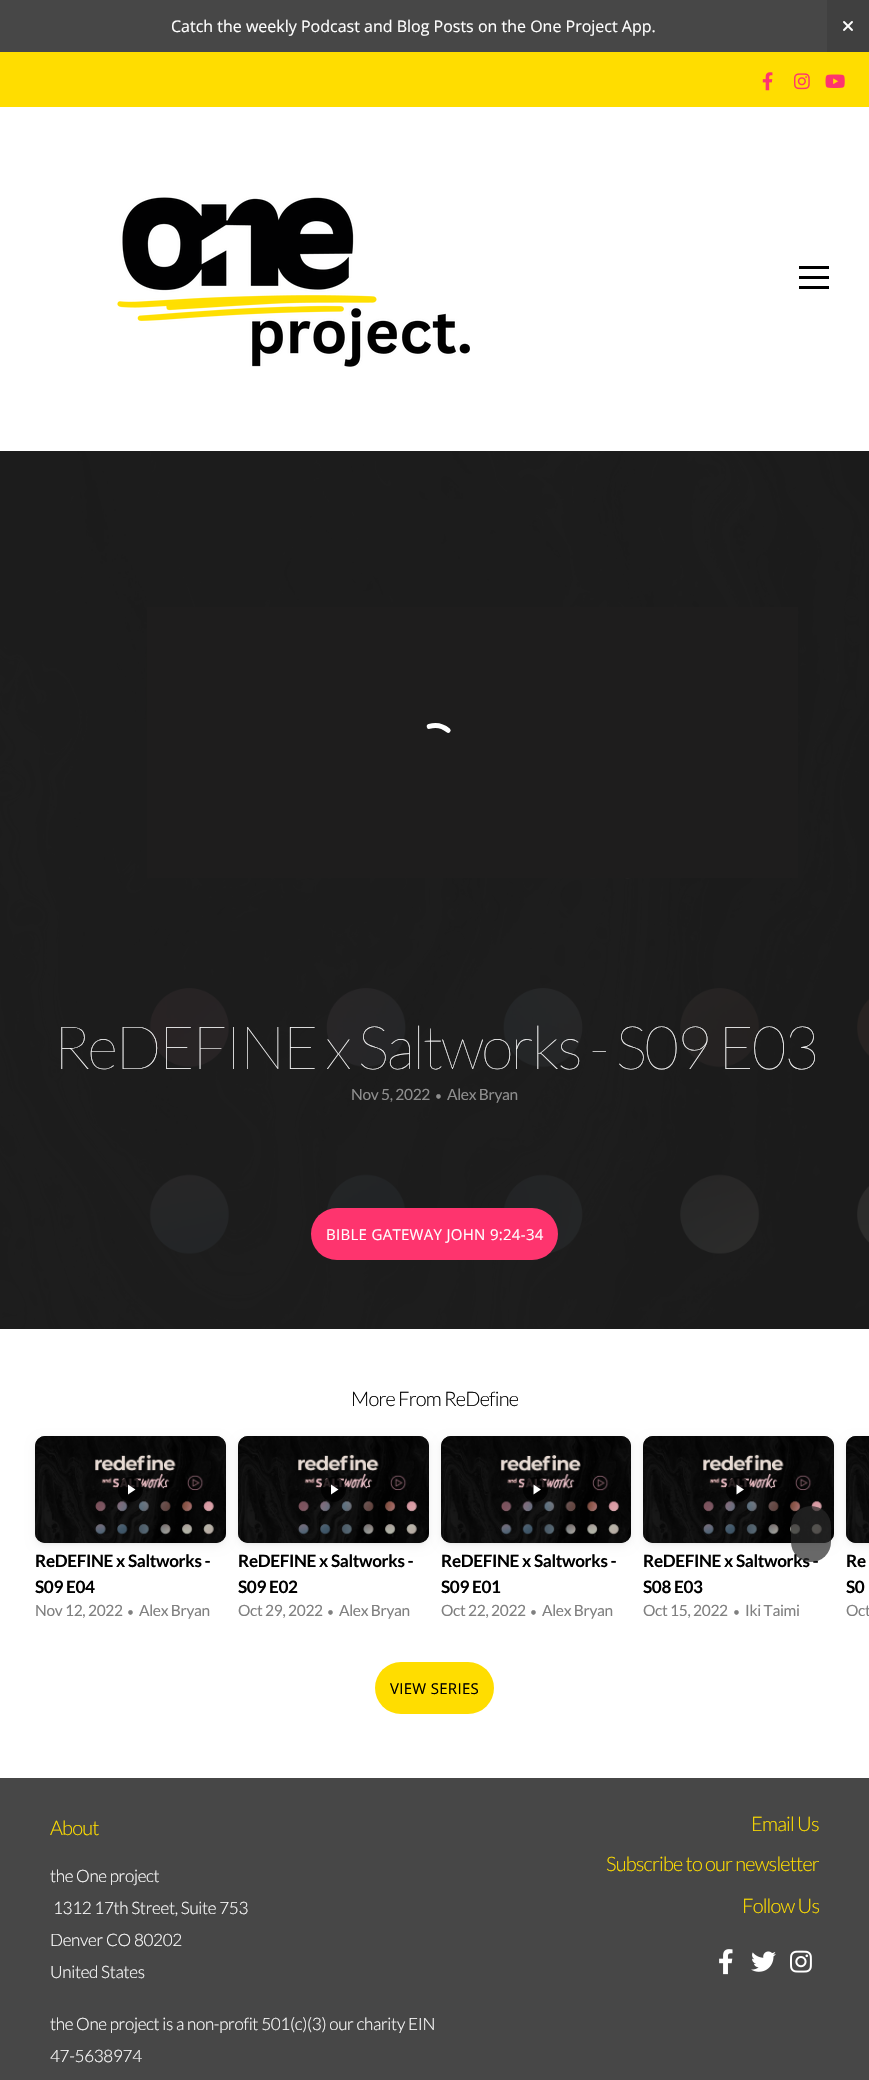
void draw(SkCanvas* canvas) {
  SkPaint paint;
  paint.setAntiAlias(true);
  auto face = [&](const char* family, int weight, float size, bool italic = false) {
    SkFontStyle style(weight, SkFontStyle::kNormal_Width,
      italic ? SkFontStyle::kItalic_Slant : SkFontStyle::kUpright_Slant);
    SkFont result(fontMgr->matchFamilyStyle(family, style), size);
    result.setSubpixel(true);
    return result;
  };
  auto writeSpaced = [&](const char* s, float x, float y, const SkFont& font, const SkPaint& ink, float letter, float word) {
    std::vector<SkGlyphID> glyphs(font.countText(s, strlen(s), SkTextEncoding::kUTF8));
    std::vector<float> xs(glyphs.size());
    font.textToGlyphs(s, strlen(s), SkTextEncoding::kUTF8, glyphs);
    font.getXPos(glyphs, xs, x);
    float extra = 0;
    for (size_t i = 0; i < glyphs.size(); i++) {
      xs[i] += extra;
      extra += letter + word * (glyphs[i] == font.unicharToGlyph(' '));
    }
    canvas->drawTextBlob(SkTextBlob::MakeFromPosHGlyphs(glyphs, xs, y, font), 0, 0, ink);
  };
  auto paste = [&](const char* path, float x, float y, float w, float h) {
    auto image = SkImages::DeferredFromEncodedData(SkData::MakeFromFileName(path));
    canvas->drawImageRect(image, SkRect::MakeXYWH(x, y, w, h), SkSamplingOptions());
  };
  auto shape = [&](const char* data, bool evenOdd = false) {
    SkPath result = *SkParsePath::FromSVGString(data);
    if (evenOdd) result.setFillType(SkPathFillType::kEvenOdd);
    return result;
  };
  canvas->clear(0xffffffff);
  paint.setColor(0xff474747);
  canvas->drawRect(SkRect::MakeXYWH(0, 0, 827, 52), paint);
  paint.setColor(0xff404040);
  canvas->drawRect(SkRect::MakeXYWH(827, 0, 42, 52), paint);
  paste("img/1.png", 843, 21, 10, 10);
  paint.setColor(0xffffdd00);
  canvas->drawRect(SkRect::MakeXYWH(0, 52, 869, 55), paint);
  paste("img/2.png", 762, 72, 11, 19);
  paste("img/3.png", 794, 73, 16, 17);
  paste("img/4.png", 825, 74, 20, 14);
  paste("img/5.png", 117, 197, 353, 170);
  {
    const struct { float x, y, w, h; SkColor color; } items[] = {
      {799, 266, 30, 3, 0xff000000},
      {799, 276, 30, 3, 0xff000000},
      {799, 286, 30, 3, 0xff000000},
    };
    for (auto [x, y, w, h, color] : items) {
      paint.setColor(color);
      canvas->drawRect(SkRect::MakeXYWH(x, y, w, h), paint);
    }
  }
  paste("img/6.png", 0, 451, 869, 878);
  paste("img/7.png", 147, 607, 651, 271);
  paint.setColor(0xfffe346e);
  canvas->drawRoundRect(SkRect::MakeXYWH(311, 1208, 247, 52), 26, 26, paint);
  paint.setColor(0x0a000000);
  paint.setMaskFilter(SkMaskFilter::MakeBlur(kNormal_SkBlurStyle, 1));
  canvas->drawRoundRect(SkRect::MakeXYWH(35, 1437, 191, 107), 10, 10, paint);
  paint.setMaskFilter(nullptr);
  paint.setColor(0x0f000000);
  paint.setMaskFilter(SkMaskFilter::MakeBlur(kNormal_SkBlurStyle, 5));
  canvas->drawRoundRect(SkRect::MakeXYWH(35, 1439, 191, 107), 10, 10, paint);
  paint.setMaskFilter(nullptr);
  paint.setColor(0xff1e1d1d);
  canvas->drawRoundRect(SkRect::MakeXYWH(35, 1436, 191, 107), 10, 10, paint);
  paste("img/8.png", 35, 1436, 191, 107);
  paint.setColor(0xcc000000);
  canvas->drawCircle(130.5f, 1489.5f, 12.5f, paint);
  paint.setColor(0xffffffff);
  canvas->drawPath(shape("M128 1494.5V1484.5L135.5 1489.5Z"), paint);
  paint.setColor(0x0a000000);
  paint.setMaskFilter(SkMaskFilter::MakeBlur(kNormal_SkBlurStyle, 1));
  canvas->drawRoundRect(SkRect::MakeXYWH(238, 1437, 191, 107), 10, 10, paint);
  paint.setMaskFilter(nullptr);
  paint.setColor(0x0f000000);
  paint.setMaskFilter(SkMaskFilter::MakeBlur(kNormal_SkBlurStyle, 5));
  canvas->drawRoundRect(SkRect::MakeXYWH(238, 1439, 191, 107), 10, 10, paint);
  paint.setMaskFilter(nullptr);
  paint.setColor(0xff1e1d1d);
  canvas->drawRoundRect(SkRect::MakeXYWH(238, 1436, 191, 107), 10, 10, paint);
  paste("img/9.png", 238, 1436, 191, 107);
  paint.setColor(0xcc000000);
  canvas->drawCircle(333.5f, 1489.5f, 12.5f, paint);
  paint.setColor(0xffffffff);
  canvas->drawPath(shape("M331 1494.5V1484.5L338.5 1489.5Z"), paint);
  paint.setColor(0x0a000000);
  paint.setMaskFilter(SkMaskFilter::MakeBlur(kNormal_SkBlurStyle, 1));
  canvas->drawRoundRect(SkRect::MakeXYWH(441, 1437, 190, 107), 10, 10, paint);
  paint.setMaskFilter(nullptr);
  paint.setColor(0x0f000000);
  paint.setMaskFilter(SkMaskFilter::MakeBlur(kNormal_SkBlurStyle, 5));
  canvas->drawRoundRect(SkRect::MakeXYWH(441, 1439, 190, 107), 10, 10, paint);
  paint.setMaskFilter(nullptr);
  paint.setColor(0xff1e1d1d);
  canvas->drawRoundRect(SkRect::MakeXYWH(441, 1436, 190, 107), 10, 10, paint);
  paste("img/10.png", 441, 1436, 190, 107);
  paint.setColor(0xcc000000);
  canvas->drawCircle(535.5f, 1489.5f, 12.5f, paint);
  paint.setColor(0xffffffff);
  canvas->drawPath(shape("M533.5 1494.5V1484.5L541 1489.5Z"), paint);
  paint.setColor(0x0a000000);
  paint.setMaskFilter(SkMaskFilter::MakeBlur(kNormal_SkBlurStyle, 1));
  canvas->drawRoundRect(SkRect::MakeXYWH(643, 1437, 191, 107), 10, 10, paint);
  paint.setMaskFilter(nullptr);
  paint.setColor(0x0f000000);
  paint.setMaskFilter(SkMaskFilter::MakeBlur(kNormal_SkBlurStyle, 5));
  canvas->drawRoundRect(SkRect::MakeXYWH(643, 1439, 191, 107), 10, 10, paint);
  paint.setMaskFilter(nullptr);
  paint.setColor(0xff1e1d1d);
  canvas->drawRoundRect(SkRect::MakeXYWH(643, 1436, 191, 107), 10, 10, paint);
  paste("img/11.png", 643, 1436, 191, 107);
  paint.setColor(0xcc000000);
  canvas->drawCircle(738.5f, 1489.5f, 12.5f, paint);
  paint.setColor(0xffffffff);
  canvas->drawPath(shape("M736.5 1494.5V1484.5L744 1489.5Z"), paint);
  paint.setColor(0x0a000000);
  paint.setMaskFilter(SkMaskFilter::MakeBlur(kNormal_SkBlurStyle, 1));
  canvas->drawRoundRect(SkRect::MakeXYWH(846, 1437, 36, 107), 10, 10, paint);
  paint.setMaskFilter(nullptr);
  paint.setColor(0x0f000000);
  paint.setMaskFilter(SkMaskFilter::MakeBlur(kNormal_SkBlurStyle, 5));
  canvas->drawRoundRect(SkRect::MakeXYWH(846, 1439, 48, 107), 10, 10, paint);
  paint.setMaskFilter(nullptr);
  paint.setColor(0xff191818);
  canvas->drawPath(shape("M856 1436H869V1543H856C850.5 1543 846 1538.5 846 1533V1446C846 1440.5 850.5 1436 856 1436Z"), paint);
  paste("img/12.png", 846, 1436, 23, 107);
  paint.setColor(0xffffdd00);
  canvas->drawRoundRect(SkRect::MakeXYWH(375, 1662, 119, 52), 26, 26, paint);
  paint.setColor(0xff474747);
  canvas->drawRect(SkRect::MakeXYWH(0, 1778, 869, 302), paint);
  paste("img/13.png", 719, 1949, 14, 26);
  paste("img/14.png", 751, 1951, 25, 21);
  paste("img/15.png", 790, 1950, 22, 23);
  auto f0 = face("Open Sans", 400, 16);
  paint.setColor(0xffffffff);
  canvas->drawString("Catch the weekly Podcast and Blog Posts on the One Project App.", 171, 32, f0, paint);
  auto f1 = face("Lato", 100, 60);
  writeSpaced("ReDEFINE x Saltworks - S09 E03", 53, 1069, f1, paint, -2.4f, 0);
  auto f2 = face("Lato", 400, 15.5f);
  paint.setColor(0xff8e8e8e);
  writeSpaced("Nov 5, 2022", 351, 1100, f2, paint, -0.32f, 0);
  auto f3 = face("Lato", 400, 12);
  writeSpaced("•", 435, 1100, f3, paint, -0.32f, 0);
  writeSpaced("Alex Bryan", 447, 1100, f2, paint, -0.32f, 0);
  auto f4 = face("Open Sans", 400, 15);
  paint.setColor(0xffffffff);
  writeSpaced("BIBLE GATEWAY JOHN 9:24-34", 326, 1240, f4, paint, 0.3f, 0);
  auto f5 = face("Lato", 300, 20);
  paint.setColor(0xff000000);
  writeSpaced("More From ReDefine", 351, 1406, f5, paint, -0.8f, 0);
  auto f6 = face("Lato", 700, 17.1f);
  writeSpaced("ReDEFINE x Saltworks -", 35, 1567, f6, paint, -0.32f, 0);
  writeSpaced("S09 E04", 35, 1593, f6, paint, -0.32f, 0);
  paint.setColor(0xff808080);
  writeSpaced("Nov 12, 2022", 35, 1616, f2, paint, -0.32f, 0);
  writeSpaced("•", 127, 1616, f3, paint, -0.32f, 0);
  writeSpaced("Alex Bryan", 139, 1616, f2, paint, -0.32f, 0);
  paint.setColor(0xff000000);
  writeSpaced("ReDEFINE x Saltworks -", 238, 1567, f6, paint, -0.32f, 0);
  writeSpaced("S09 E02", 238, 1593, f6, paint, -0.32f, 0);
  paint.setColor(0xff808080);
  writeSpaced("Oct 29, 2022", 238, 1616, f2, paint, -0.32f, 0);
  writeSpaced("•", 327, 1616, f3, paint, -0.32f, 0);
  writeSpaced("Alex Bryan", 339, 1616, f2, paint, -0.32f, 0);
  paint.setColor(0xff000000);
  writeSpaced("ReDEFINE x Saltworks -", 441, 1567, f6, paint, -0.32f, 0);
  writeSpaced("S09 E01", 441, 1593, f6, paint, -0.32f, 0);
  paint.setColor(0xff808080);
  writeSpaced("Oct 22, 2022", 441, 1616, f2, paint, -0.32f, 0);
  writeSpaced("•", 530, 1616, f3, paint, -0.32f, 0);
  writeSpaced("Alex Bryan", 542, 1616, f2, paint, -0.32f, 0);
  paint.setColor(0xff000000);
  writeSpaced("ReDEFINE x Saltworks -", 643, 1567, f6, paint, -0.32f, 0);
  paint.setColor(0xb3282828);
  canvas->drawRoundRect(SkRect::MakeXYWH(791, 1506, 40, 56), 20, 20, paint);
  paint.setColor(0xff000000);
  writeSpaced("S08 E03", 643, 1593, f6, paint, -0.32f, 0);
  paint.setColor(0xff808080);
  writeSpaced("Oct 15, 2022", 643, 1616, f2, paint, -0.32f, 0);
  writeSpaced("•", 733, 1616, f3, paint, -0.32f, 0);
  writeSpaced("Iki Taimi", 745, 1616, f2, paint, -0.32f, 0);
  paint.setColor(0xff000000);
  writeSpaced("Re", 846, 1567, f6, paint, -0.32f, 0);
  writeSpaced("S0", 846, 1593, f6, paint, -0.32f, 0);
  paint.setColor(0xff808080);
  writeSpaced("Oct", 846, 1616, f2, paint, -0.32f, 0);
  paint.setColor(0xff000000);
  writeSpaced("VIEW SERIES", 390, 1694, f4, paint, 0.3f, 0);
  paint.setColor(0xffffdd00);
  writeSpaced("About", 50, 1835, f5, paint, -0.8f, 0);
  auto f7 = face("Lato", 300, 17.1f);
  paint.setColor(0xffffffff);
  {
    const struct { const char* s; float x, y; } items[] = {
      {"the One project", 50, 1882},
      {"1312 17th Street, Suite 753", 53, 1914},
      {"Denver CO 80202", 50, 1946},
      {"United States", 50, 1978},
      {"the One project is a non-profit 501(c)(3) our charity EIN", 50, 2030},
      {"47-5638974", 50, 2062},
    };
    for (auto [s, x, y] : items) {
      writeSpaced(s, x, y, f7, paint, -0.32f, 0);
    }
  }
  paint.setColor(0xffffdd00);
  {
    const struct { const char* s; float x, y; } items[] = {
      {"Email Us", 751, 1831},
      {"Subscribe to our newsletter", 606, 1871},
      {"Follow Us", 742, 1913},
    };
    for (auto [s, x, y] : items) {
      writeSpaced(s, x, y, f5, paint, -0.8f, 0);
    }
  }
}
